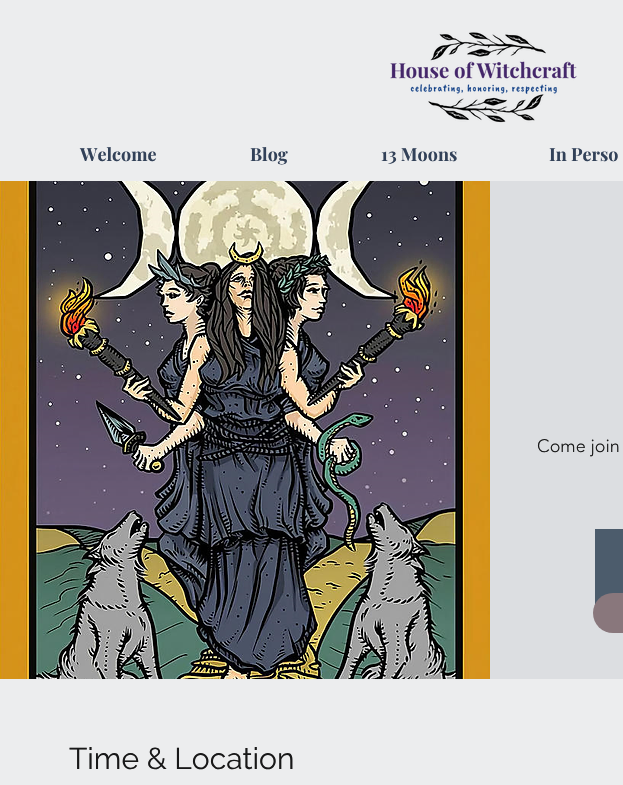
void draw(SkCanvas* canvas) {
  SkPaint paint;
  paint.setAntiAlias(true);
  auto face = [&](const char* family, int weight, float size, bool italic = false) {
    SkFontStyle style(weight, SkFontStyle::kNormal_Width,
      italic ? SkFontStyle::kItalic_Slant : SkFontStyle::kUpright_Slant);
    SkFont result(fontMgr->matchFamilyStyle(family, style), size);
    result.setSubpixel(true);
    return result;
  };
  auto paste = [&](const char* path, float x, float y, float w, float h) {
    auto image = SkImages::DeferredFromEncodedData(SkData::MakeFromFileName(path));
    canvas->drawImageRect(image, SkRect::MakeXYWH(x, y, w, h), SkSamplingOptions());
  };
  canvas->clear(0xffecedee);
  paste("img/1.png", 390, 32, 187, 91);
  paste("img/2.png", 0, 181, 490, 498);
  paint.setColor(0xffdcdee1);
  canvas->drawRect(SkRect::MakeXYWH(490, 181, 133, 498), paint);
  paint.setColor(0xff4c5c6c);
  canvas->drawRect(SkRect::MakeXYWH(595, 529, 28, 76), paint);
  paint.setColor(0xff89777c);
  canvas->drawRoundRect(SkRect::MakeXYWH(593, 593, 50, 40), 20, 20, paint);
  auto f0 = face("Playfair Display", 700, 18);
  paint.setColor(0xff324158);
  {
    const struct { const char* s; float x, y; } items[] = {
      {"Welcome", 80, 161},
      {"Blog", 250, 161},
      {"13 Moons", 381, 161},
      {"In Perso", 549, 161},
    };
    for (auto [s, x, y] : items) {
      canvas->drawString(s, x, y, f0, paint);
    }
  }
  auto f1 = face("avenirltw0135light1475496", 300, 18);
  paint.setColor(0xff181818);
  canvas->drawString("Come join", 537, 452, f1, paint);
  auto f2 = face("Raleway", 400, 30);
  canvas->drawString("Time & Location", 69, 769, f2, paint);
}
